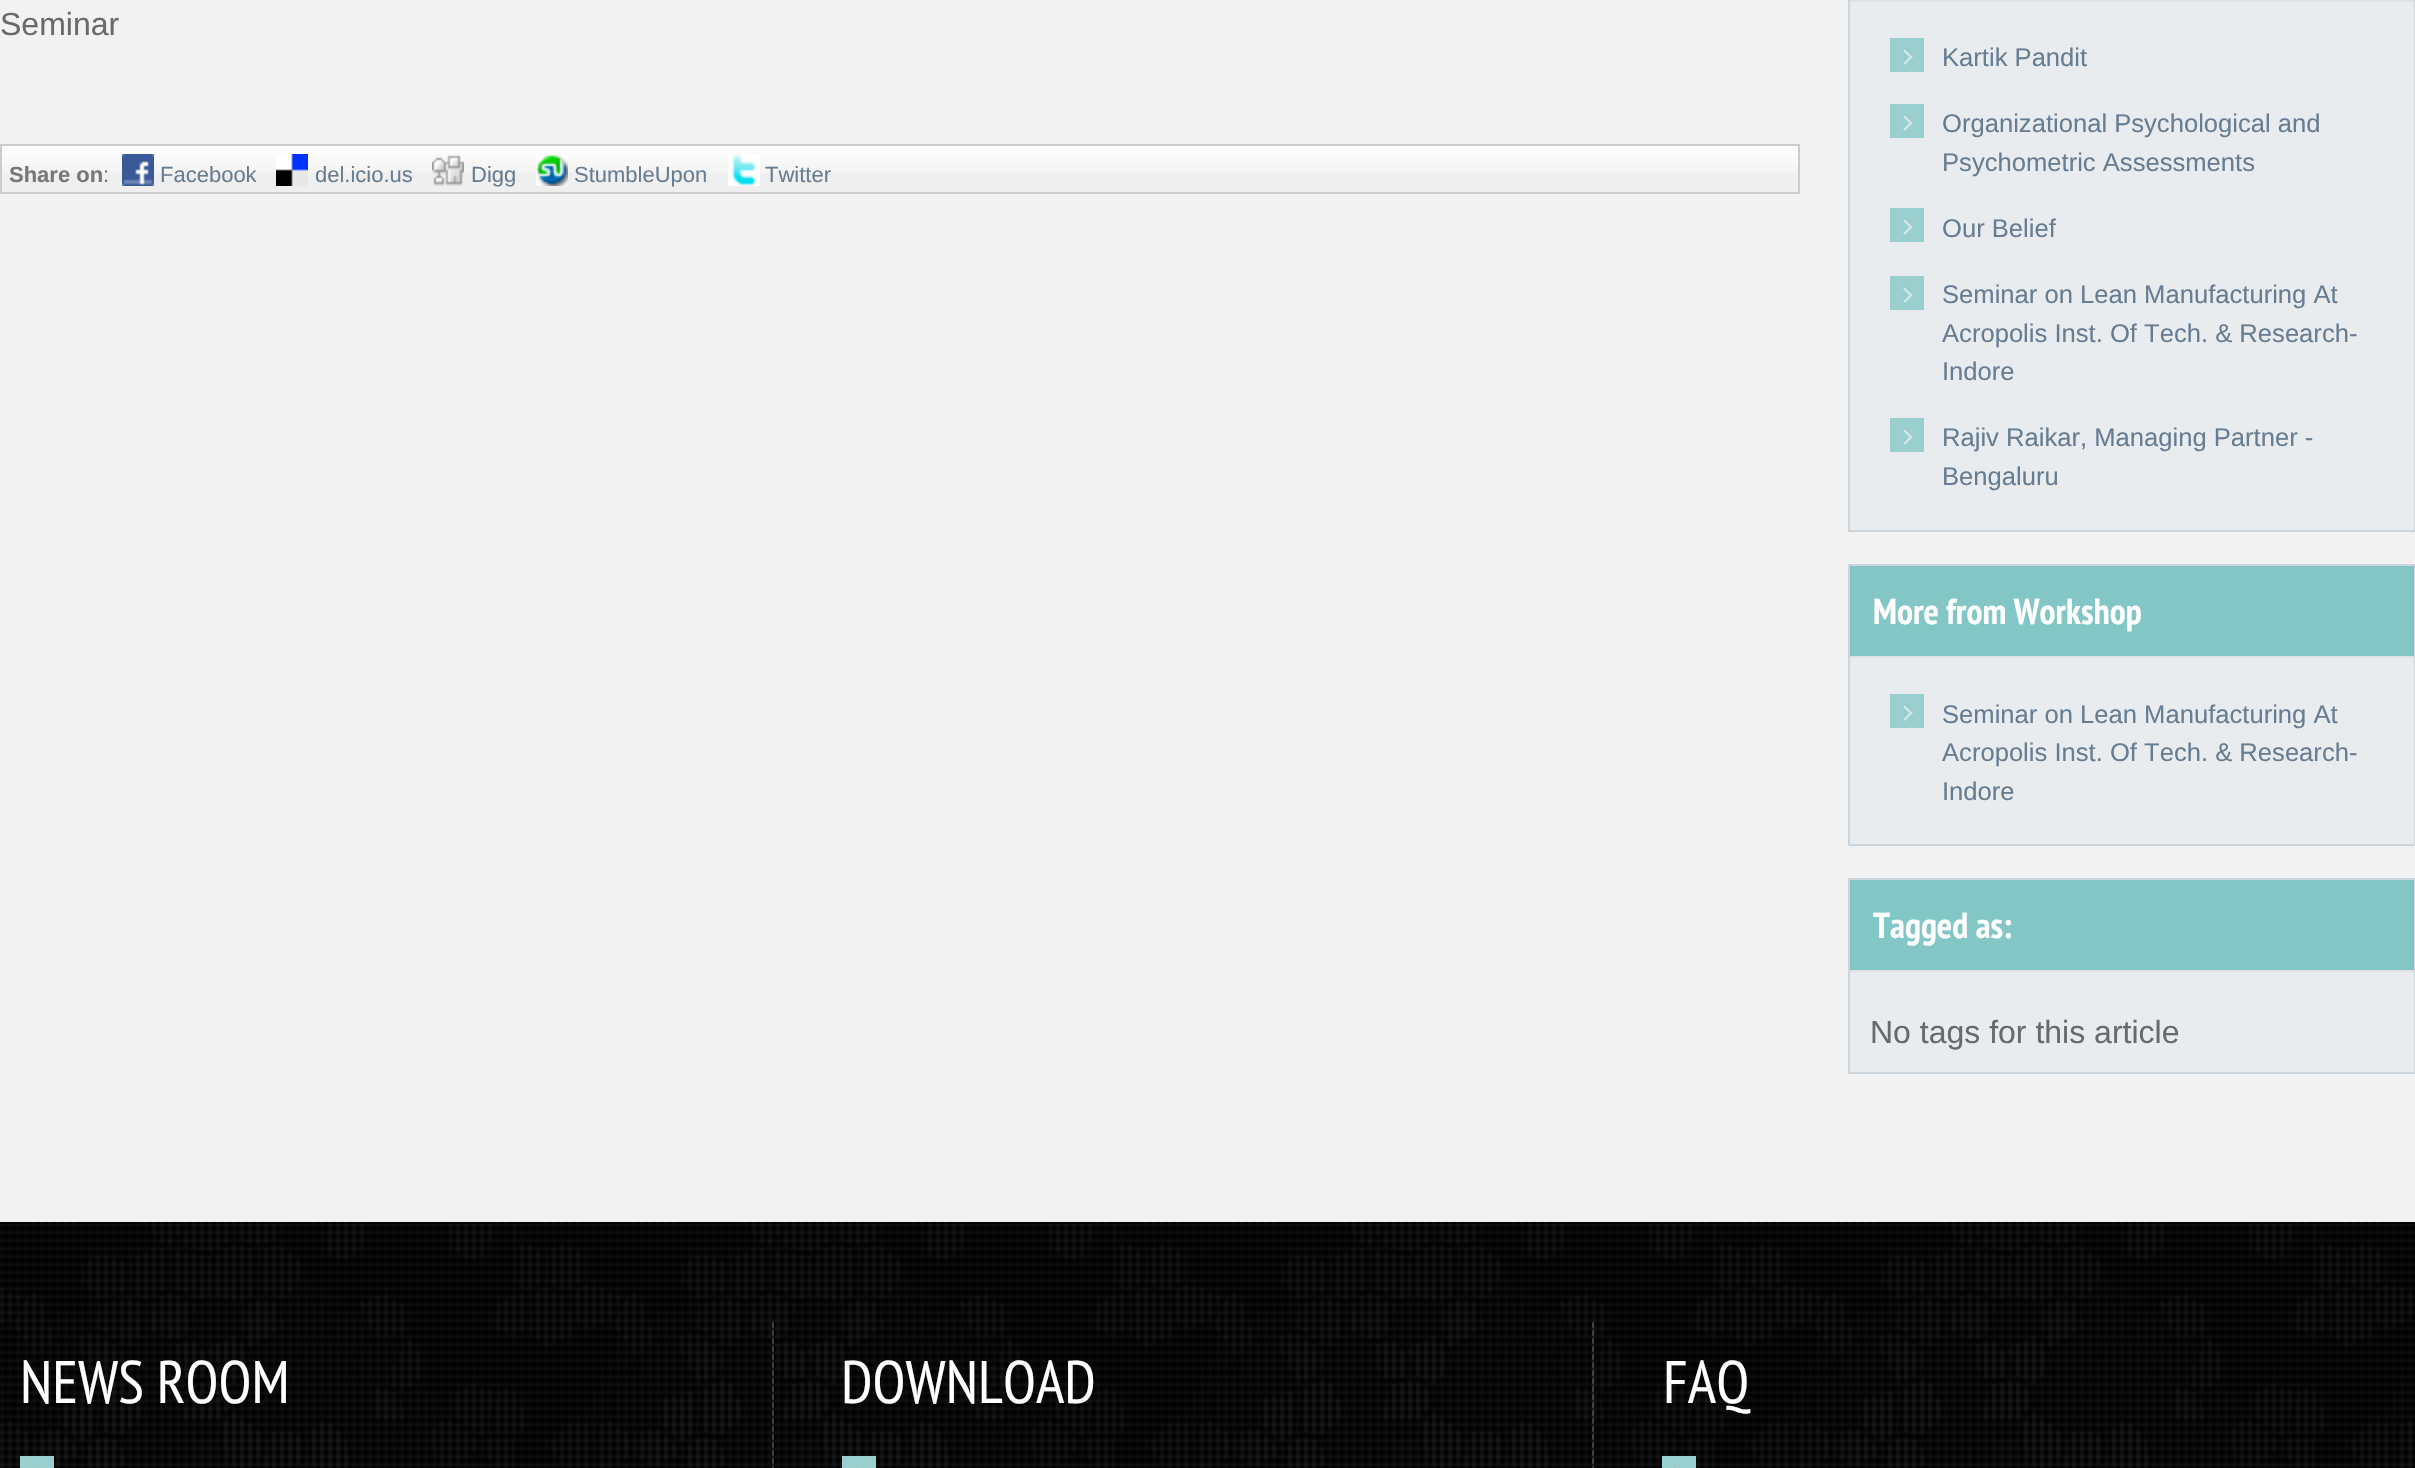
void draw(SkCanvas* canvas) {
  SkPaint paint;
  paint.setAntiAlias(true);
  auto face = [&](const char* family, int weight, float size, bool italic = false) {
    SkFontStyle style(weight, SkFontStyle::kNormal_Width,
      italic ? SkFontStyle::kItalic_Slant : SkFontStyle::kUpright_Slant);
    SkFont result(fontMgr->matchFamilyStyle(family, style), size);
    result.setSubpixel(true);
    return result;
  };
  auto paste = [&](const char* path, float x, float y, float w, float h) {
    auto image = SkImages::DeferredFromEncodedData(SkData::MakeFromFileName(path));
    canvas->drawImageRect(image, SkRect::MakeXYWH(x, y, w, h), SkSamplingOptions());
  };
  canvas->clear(0xfff2f2f2);
  paint.setColor(0xffefefef);
  canvas->drawRect(SkRect::MakeXYWH(2, 173, 1796, 19), paint);
  paste("img/1.png", 2, 146, 1796, 27);
  paint.setStroke(true);
  paint.setStrokeWidth(2);
  paint.setColor(0xffcccccc);
  canvas->drawRect(SkRect::MakeXYWH(1, 145, 1798, 48), paint);
  paste("img/2.png", 122, 154, 32, 32);
  paste("img/3.png", 276, 154, 32, 32);
  paste("img/4.png", 432, 155, 32, 31);
  paste("img/5.png", 536, 154, 32, 32);
  paste("img/6.png", 728, 154, 32, 32);
  paint.setStroke(false);
  paint.setColor(0xffe9ecef);
  canvas->drawRect(SkRect::MakeXYWH(1850, 2, 564, 528), paint);
  paint.setStroke(true);
  paint.setColor(0xffcdd5dc);
  canvas->drawRect(SkRect::MakeXYWH(1849, -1, 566, 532), paint);
  paint.setStroke(false);
  paint.setColor(0xffe1e1e1);
  canvas->drawRect(SkRect::MakeXYWH(1850, 0, 564, 2), paint);
  paste("img/7.png", 1890, 38, 34, 34);
  paste("img/7.png", 1890, 104, 34, 34);
  paste("img/7.png", 1890, 208, 34, 34);
  paste("img/7.png", 1890, 276, 34, 34);
  paste("img/7.png", 1890, 418, 34, 34);
  paint.setColor(0xffe9ecef);
  canvas->drawRect(SkRect::MakeXYWH(1850, 658, 564, 186), paint);
  paint.setStroke(true);
  paint.setColor(0xffcdd5dc);
  canvas->drawRect(SkRect::MakeXYWH(1849, 565, 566, 280), paint);
  paint.setStroke(false);
  paint.setColor(0xff83c6c6);
  canvas->drawRect(SkRect::MakeXYWH(1850, 566, 564, 90), paint);
  paint.setColor(0xffe1e1e1);
  canvas->drawRect(SkRect::MakeXYWH(1850, 656, 564, 2), paint);
  paste("img/7.png", 1890, 694, 34, 34);
  paint.setColor(0xffe9ecef);
  canvas->drawRect(SkRect::MakeXYWH(1850, 972, 564, 100), paint);
  paint.setStroke(true);
  paint.setColor(0xffcdd5dc);
  canvas->drawRect(SkRect::MakeXYWH(1849, 879, 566, 194), paint);
  paint.setStroke(false);
  paint.setColor(0xff83c6c6);
  canvas->drawRect(SkRect::MakeXYWH(1850, 880, 564, 90), paint);
  paint.setColor(0xffe1e1e1);
  canvas->drawRect(SkRect::MakeXYWH(1850, 970, 564, 2), paint);
  paste("img/8.png", 0, 1222, 2415, 246);
  paste("img/9.png", 772, 1322, 2, 146);
  paste("img/10.png", 20, 1456, 34, 12);
  paste("img/11.png", 1592, 1322, 2, 146);
  paste("img/10.png", 842, 1456, 34, 12);
  paste("img/10.png", 1662, 1456, 34, 12);
  auto f0 = face("Liberation Sans", 400, 32);
  paint.setColor(0xff6a6a6a);
  canvas->drawString("Seminar", 0, 35, f0, paint);
  auto f1 = face("Liberation Sans", 700, 22);
  paint.setColor(0xff777777);
  canvas->drawString("Share on", 9, 182, f1, paint);
  auto f2 = face("Liberation Sans", 400, 22);
  canvas->drawString(":", 103, 182, f2, paint);
  paint.setColor(0xff677d92);
  {
    const struct { const char* s; float x, y; } items[] = {
      {"Facebook", 160, 182},
      {"del.icio.us", 315, 182},
      {"Digg", 471, 182},
      {"StumbleUpon", 574, 182},
      {"Twitter", 765, 182},
    };
    for (auto [s, x, y] : items) {
      canvas->drawString(s, x, y, f2, paint);
    }
  }
  auto f3 = face("Liberation Sans", 400, 25.6f);
  {
    const struct { const char* s; float x, y; } items[] = {
      {"Kartik Pandit", 1942, 66},
      {"Organizational Psychological and", 1942, 132},
      {"Psychometric Assessments", 1942, 171},
      {"Our Belief", 1942, 237},
      {"Seminar on Lean Manufacturing At", 1942, 303},
      {"Acropolis Inst. Of Tech. & Research-", 1942, 342},
      {"Indore", 1942, 380},
      {"Rajiv Raikar, Managing Partner -", 1942, 446},
      {"Bengaluru", 1942, 485},
    };
    for (auto [s, x, y] : items) {
      canvas->drawString(s, x, y, f3, paint);
    }
  }
  auto f4 = face("PT Sans Narrow", 700, 36);
  paint.setColor(0xffffffff);
  canvas->drawString("More from Workshop", 1873, 624, f4, paint);
  paint.setColor(0xff677d92);
  {
    const struct { const char* s; float x, y; } items[] = {
      {"Seminar on Lean Manufacturing At", 1942, 723},
      {"Acropolis Inst. Of Tech. & Research-", 1942, 761},
      {"Indore", 1942, 800},
    };
    for (auto [s, x, y] : items) {
      canvas->drawString(s, x, y, f3, paint);
    }
  }
  paint.setColor(0xffffffff);
  canvas->drawString("Tagged as:", 1873, 938, f4, paint);
  paint.setColor(0xff6a6a6a);
  canvas->drawString("No tags for this article", 1870, 1043, f0, paint);
  auto f5 = face("PT Sans Narrow", 400, 60);
  paint.setColor(0xffffffff);
  {
    const struct { const char* s; float x, y; } items[] = {
      {"NEWS ROOM", 20, 1403},
      {"DOWNLOAD", 841, 1403},
      {"FAQ", 1663, 1403},
    };
    for (auto [s, x, y] : items) {
      canvas->drawString(s, x, y, f5, paint);
    }
  }
}
